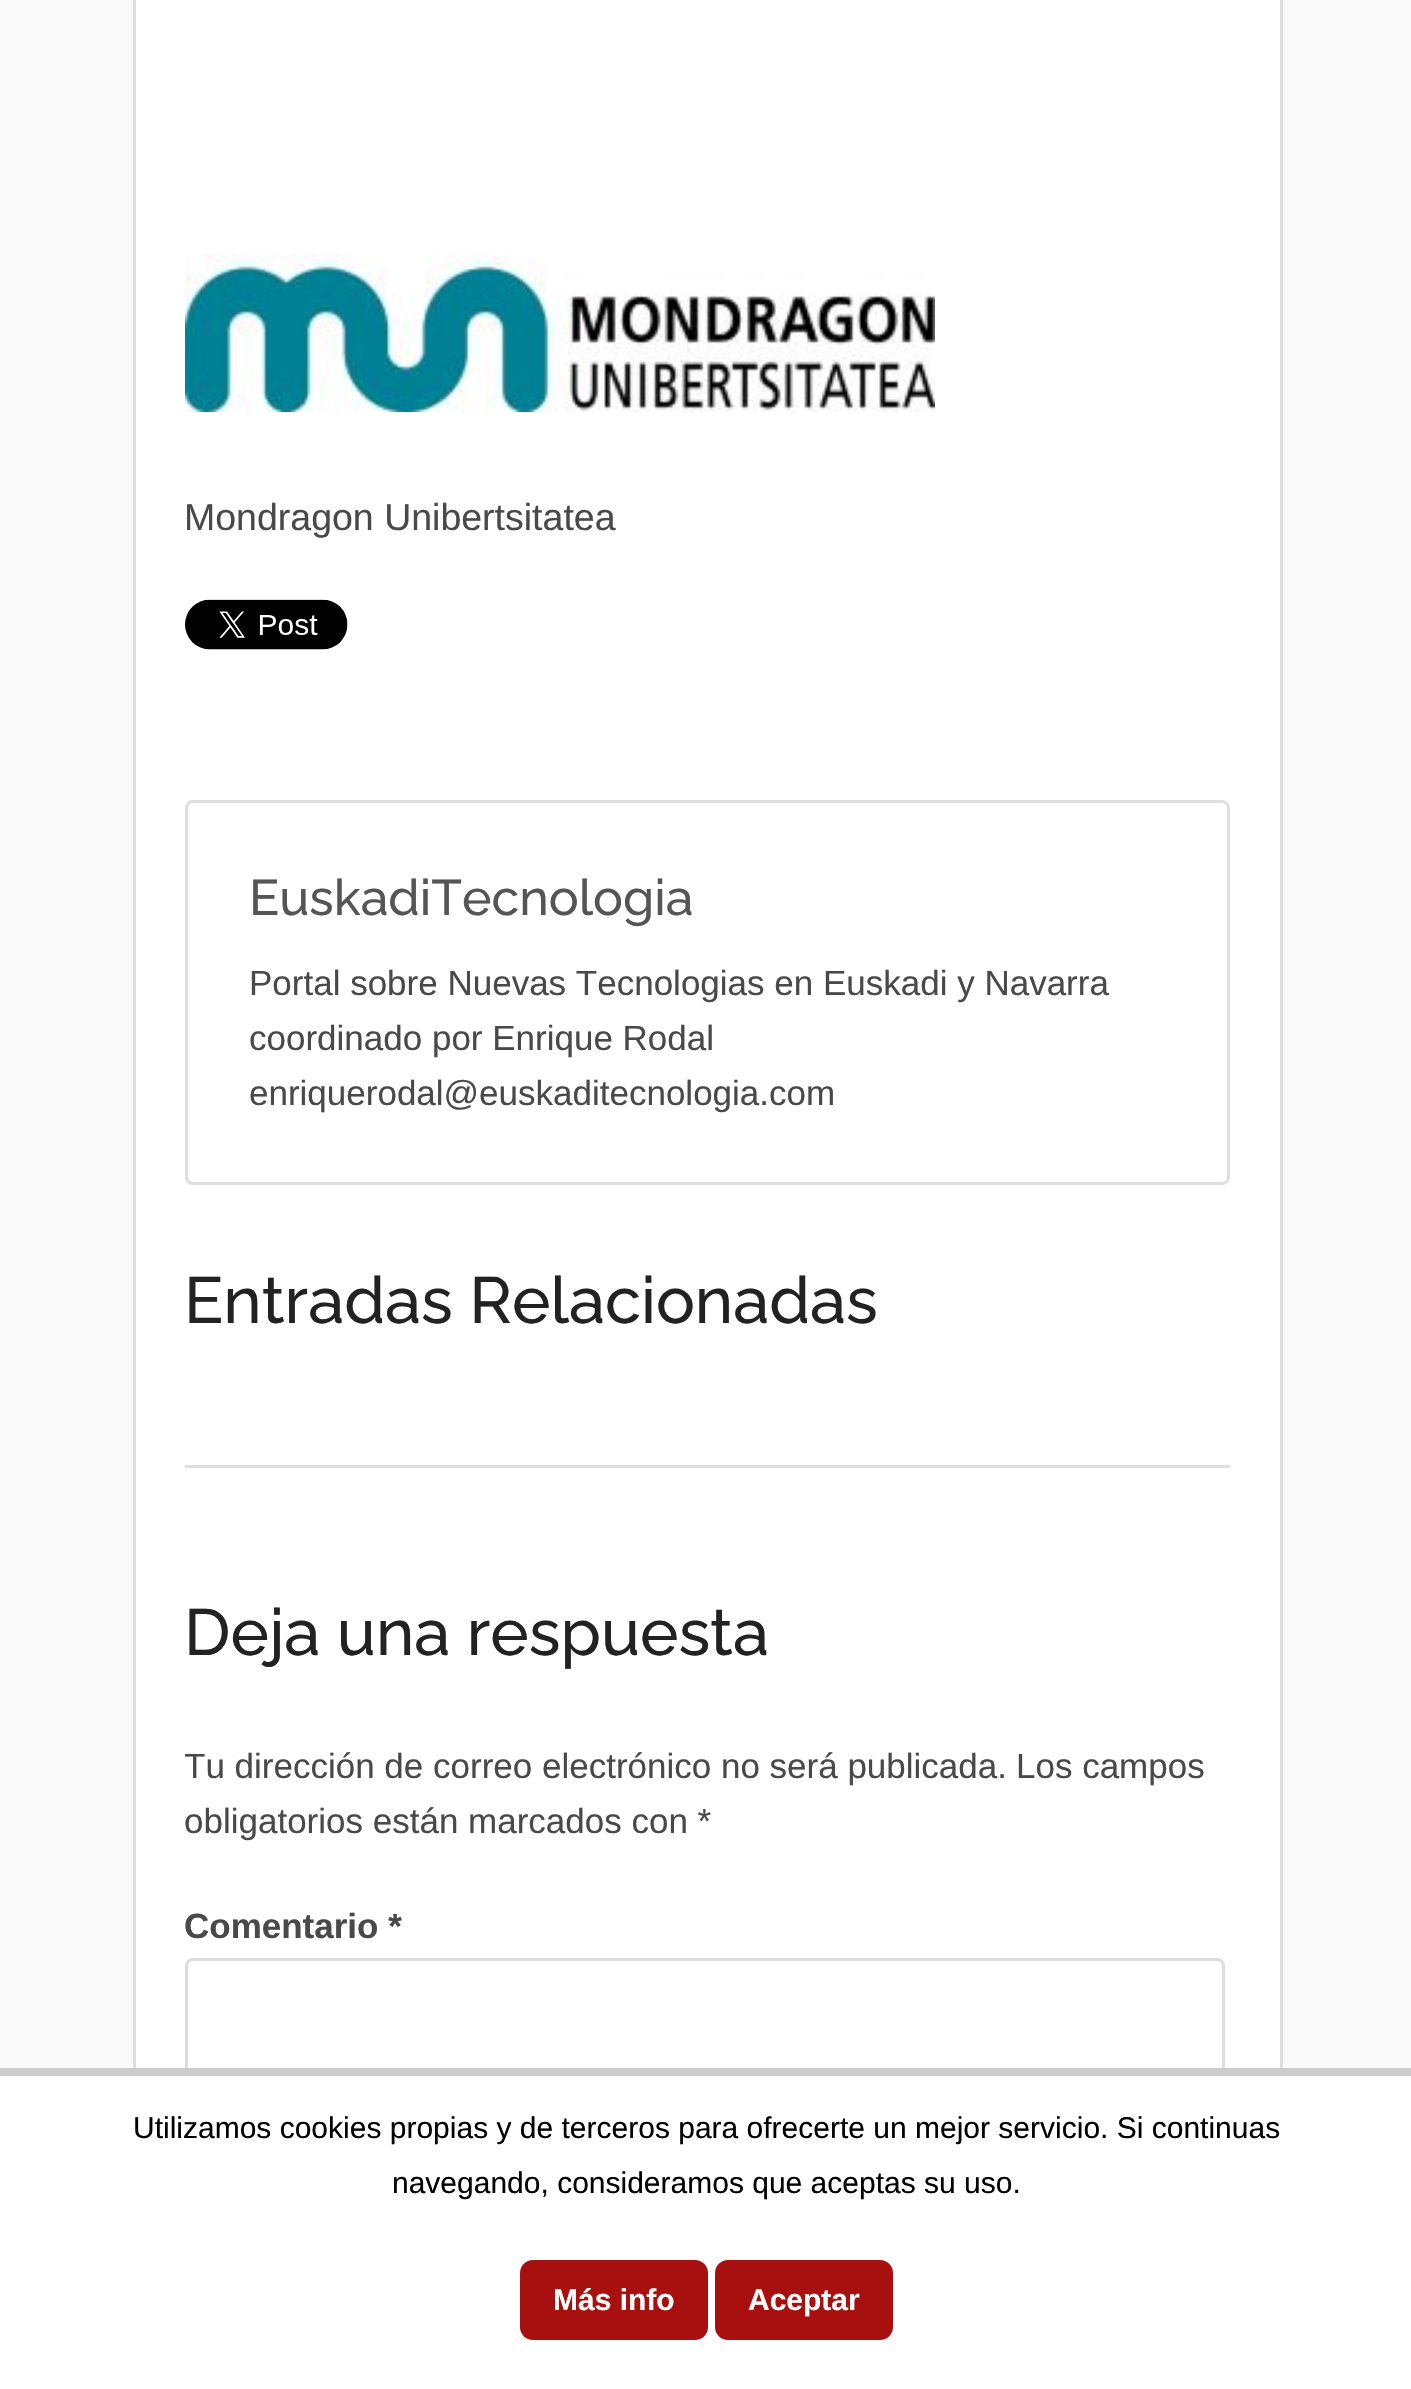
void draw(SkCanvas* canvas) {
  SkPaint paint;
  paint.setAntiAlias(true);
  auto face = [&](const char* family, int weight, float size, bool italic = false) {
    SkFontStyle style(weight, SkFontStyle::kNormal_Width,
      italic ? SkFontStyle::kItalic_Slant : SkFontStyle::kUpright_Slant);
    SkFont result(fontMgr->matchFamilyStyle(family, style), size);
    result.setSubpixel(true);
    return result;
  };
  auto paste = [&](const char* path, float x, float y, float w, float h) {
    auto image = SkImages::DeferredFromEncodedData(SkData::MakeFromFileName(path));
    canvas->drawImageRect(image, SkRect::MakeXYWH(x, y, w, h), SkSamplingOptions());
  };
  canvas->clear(0xfff9f9f9);
  paint.setColor(0xffffffff);
  canvas->drawRect(SkRect::MakeXYWH(136, 0, 1144, 2068), paint);
  paint.setStroke(true);
  paint.setStrokeWidth(3);
  paint.setColor(0xffdfdfdf);
  canvas->drawRect(SkRect::MakeXYWH(134.5f, -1.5f, 1147, 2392), paint);
  paste("img/1.png", 185, 254, 750, 158);
  paste("img/2.png", 185, 599, 163, 51);
  canvas->drawRoundRect(SkRect::MakeXYWH(186.5f, 801.5f, 1042, 382), 6.5f, 6.5f, paint);
  paint.setStroke(false);
  canvas->drawRect(SkRect::MakeXYWH(185, 1465, 1045, 3), paint);
  paint.setStroke(true);
  paint.setColor(0xffdddddd);
  canvas->drawRoundRect(SkRect::MakeXYWH(186.5f, 1959.5f, 1037, 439), 6.5f, 6.5f, paint);
  paint.setStroke(false);
  paint.setColor(0xffffffff);
  canvas->drawRect(SkRect::MakeXYWH(0, 2076, 1411, 313), paint);
  paint.setColor(0xffcccccc);
  canvas->drawRect(SkRect::MakeXYWH(0, 2068, 1411, 8), paint);
  paint.setColor(0xffa81010);
  canvas->drawRoundRect(SkRect::MakeXYWH(520, 2260, 188, 80), 13, 13, paint);
  canvas->drawRoundRect(SkRect::MakeXYWH(715, 2260, 178, 80), 13, 13, paint);
  auto f0 = face("Liberation Sans", 400, 37.5f);
  paint.setColor(0xff494949);
  canvas->drawString("Mondragon Unibertsitatea", 184, 530, f0, paint);
  auto f1 = face("Raleway", 500, 50);
  paint.setColor(0xff555555);
  canvas->drawString("EuskadiTecnologia", 249, 915, f1, paint);
  auto f2 = face("Liberation Sans", 400, 35);
  paint.setColor(0xff494949);
  {
    const struct { const char* s; float x, y; } items[] = {
      {"Portal sobre Nuevas Tecnologias en Euskadi y Navarra", 249, 995},
      {"coordinado por Enrique Rodal", 249, 1050},
      {"enriquerodal@euskaditecnologia.com", 249, 1105},
    };
    for (auto [s, x, y] : items) {
      canvas->drawString(s, x, y, f2, paint);
    }
  }
  auto f3 = face("Raleway", 500, 65);
  paint.setColor(0xff222222);
  canvas->drawString("Entradas Relacionadas", 184, 1323, f3, paint);
  canvas->drawString("Deja una respuesta", 184, 1655, f3, paint);
  canvas->save();
  canvas->clipRect(SkRect::MakeXYWH(185, 0, 1045, 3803));
  paint.setColor(0xff494949);
  canvas->drawString("Tu dirección de correo electrónico no será publicada.", 184, 1778, f2, paint);
  canvas->restore();
  canvas->drawString("Los campos", 1016, 1778, f2, paint);
  canvas->drawString("obligatorios están marcados con *", 184, 1833, f2, paint);
  auto f4 = face("Liberation Sans", 700, 35);
  canvas->drawString("Comentario *", 184, 1938, f4, paint);
  auto f5 = face("Liberation Sans", 400, 30);
  paint.setColor(0xff000000);
  canvas->drawString("Utilizamos cookies propias y de terceros para ofrecerte un mejor servicio. Si continuas", 133, 2138, f5, paint);
  canvas->drawString("navegando, consideramos que aceptas su uso.", 392, 2193, f5, paint);
  auto f6 = face("Liberation Sans", 700, 30);
  paint.setColor(0xffffffff);
  canvas->drawString("Más info", 553, 2310, f6, paint);
  canvas->drawString("Aceptar", 748, 2310, f6, paint);
}
